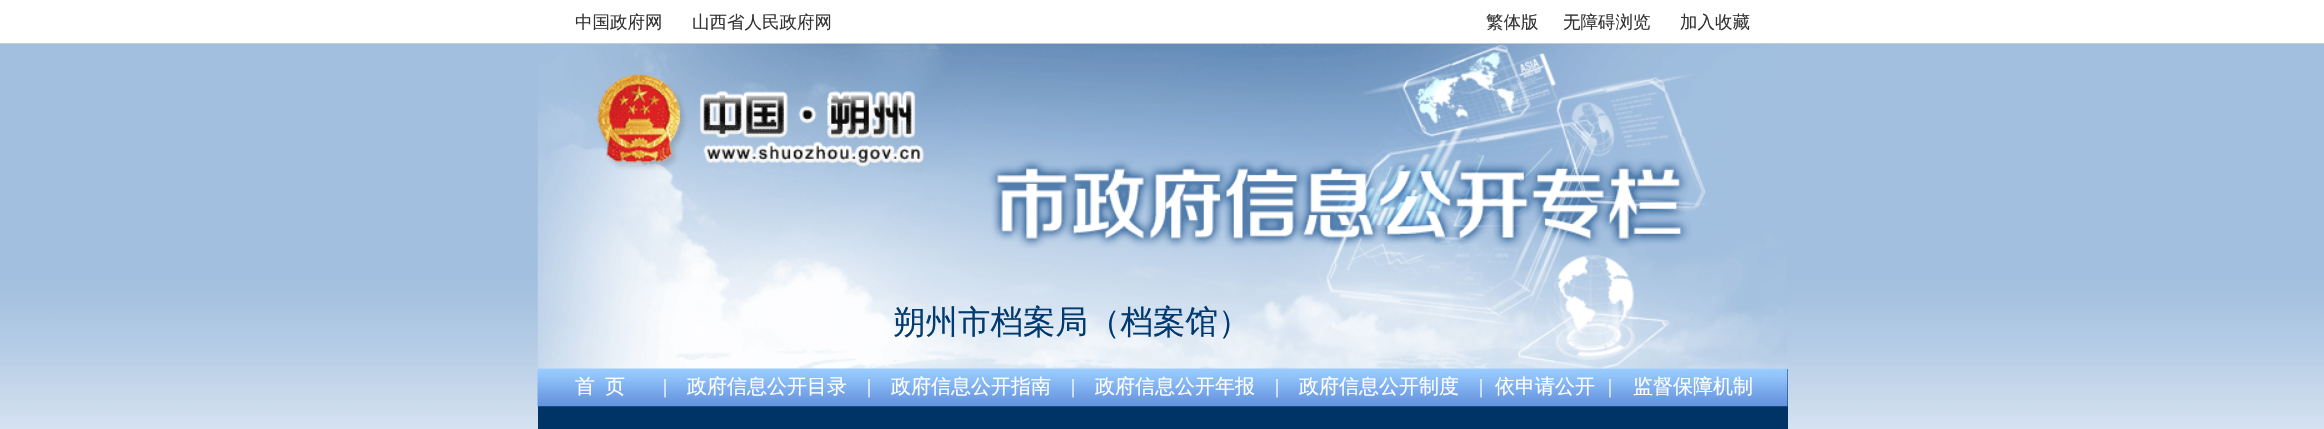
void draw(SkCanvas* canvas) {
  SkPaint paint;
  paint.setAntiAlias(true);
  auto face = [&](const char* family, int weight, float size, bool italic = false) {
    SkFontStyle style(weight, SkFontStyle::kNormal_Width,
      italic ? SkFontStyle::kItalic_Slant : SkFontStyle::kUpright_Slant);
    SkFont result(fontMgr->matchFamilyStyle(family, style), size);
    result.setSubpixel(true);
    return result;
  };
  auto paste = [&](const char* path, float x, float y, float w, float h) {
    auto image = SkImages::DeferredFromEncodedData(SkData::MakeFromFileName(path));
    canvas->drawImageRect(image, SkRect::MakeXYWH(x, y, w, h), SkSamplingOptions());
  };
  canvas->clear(0xffffffff);
  paste("img/1.png", 0, 44, 2324, 385);
  paint.setColor(0xffcccccc);
  canvas->drawRect(SkRect::MakeXYWH(0, 43, 2324, 1), paint);
  paste("img/2.png", 537, 43, 1250, 326);
  paint.setColor(0xff003366);
  canvas->drawRect(SkRect::MakeXYWH(538, 369, 1250, 60), paint);
  paste("img/3.png", 537, 368, 1251, 39);
  auto f0 = face("WenQuanYi Zen Hei", 500, 17.5f);
  paint.setColor(0xff333333);
  {
    const struct { const char* s; float x, y; } items[] = {
      {"中国政府网", 575, 28},
      {"山西省人民政府网", 692, 28},
      {"繁体版", 1486, 28},
      {"无障碍浏览", 1563, 28},
      {"加入收藏", 1680, 28},
    };
    for (auto [s, x, y] : items) {
      canvas->drawString(s, x, y, f0, paint);
    }
  }
  auto f1 = face("WenQuanYi Zen Hei", 500, 32.5f);
  paint.setColor(0xff003a70);
  canvas->drawString("朔州市档案局（档案馆）", 893, 333, f1, paint);
  auto f2 = face("WenQuanYi Zen Hei", 500, 20);
  paint.setColor(0xffffffff);
  canvas->drawString("首", 575, 393, f2, paint);
  canvas->drawString("页", 605, 393, f2, paint);
  auto f3 = face("Liberation Serif", 400, 20);
  canvas->drawString("|", 663, 393, f3, paint);
  canvas->drawString("政府信息公开目录", 687, 393, f2, paint);
  canvas->drawString("|", 867, 393, f3, paint);
  canvas->drawString("政府信息公开指南", 891, 393, f2, paint);
  canvas->drawString("|", 1071, 393, f3, paint);
  canvas->drawString("政府信息公开年报", 1095, 393, f2, paint);
  canvas->drawString("|", 1275, 393, f3, paint);
  canvas->drawString("政府信息公开制度", 1299, 393, f2, paint);
  canvas->drawString("|", 1479, 393, f3, paint);
  canvas->drawString("依申请公开", 1495, 393, f2, paint);
  canvas->drawString("|", 1608, 393, f3, paint);
  canvas->drawString("监督保障机制", 1633, 393, f2, paint);
}
